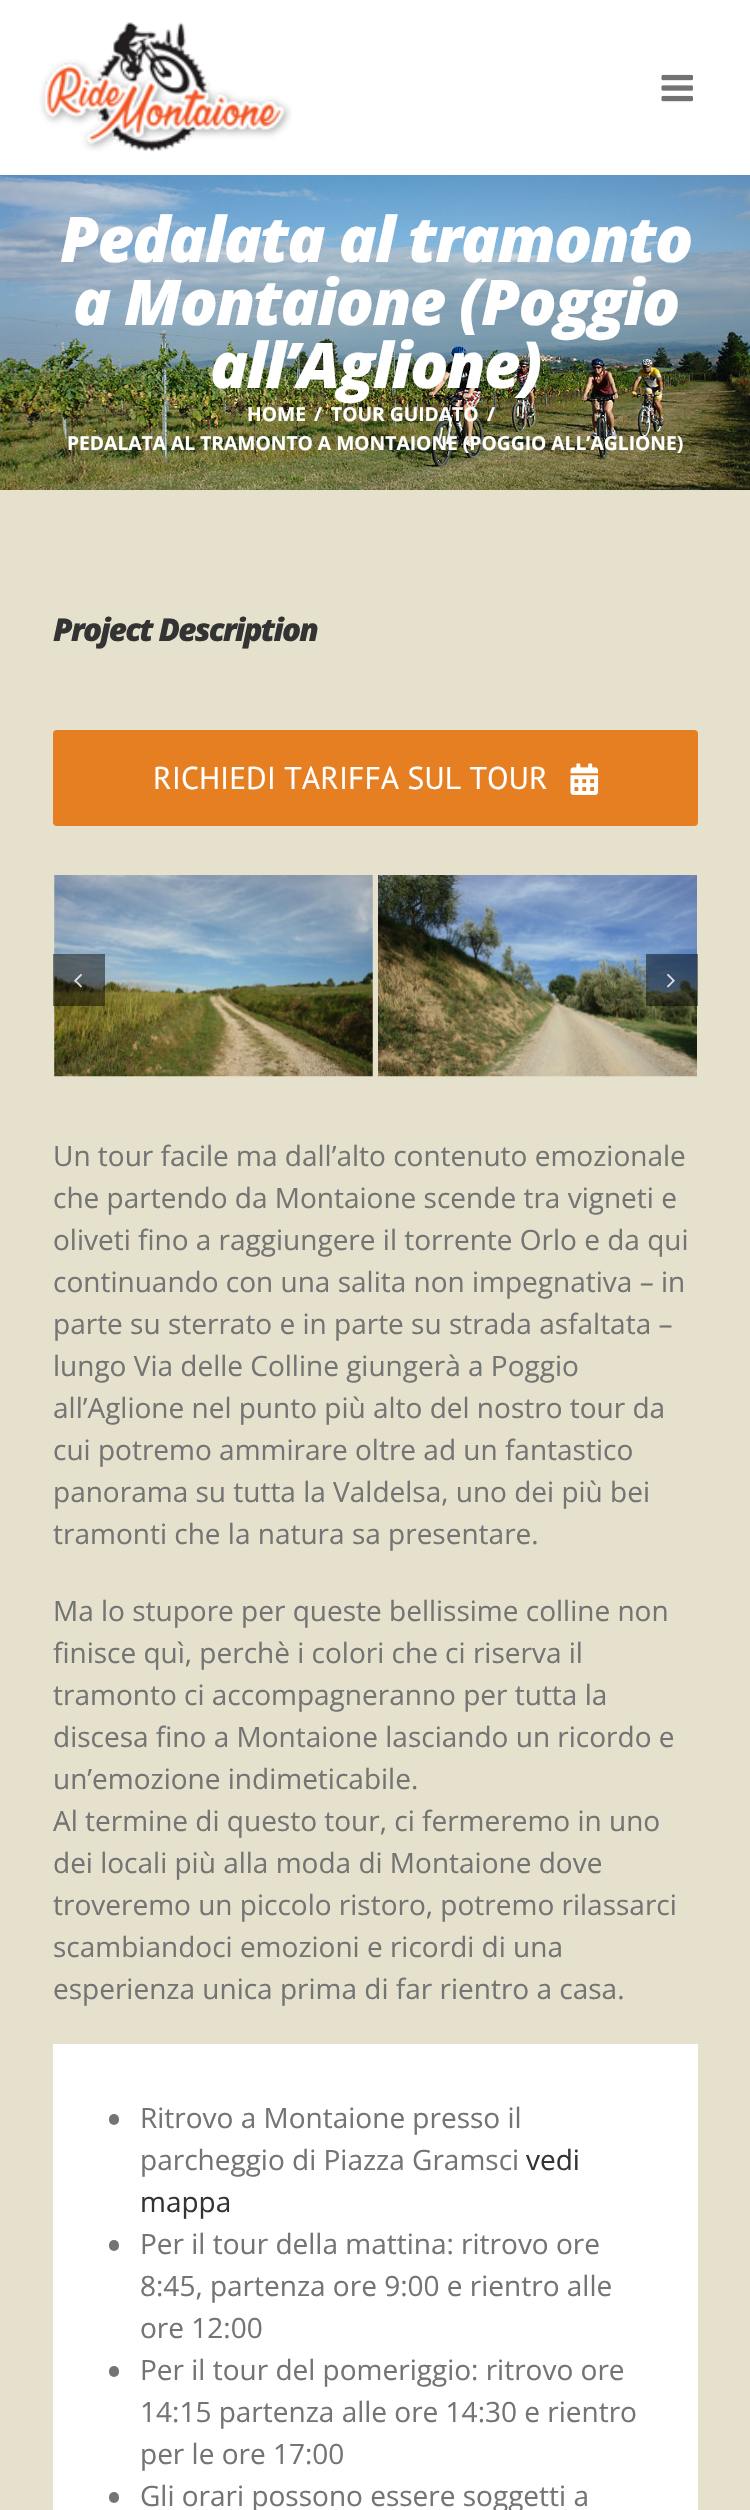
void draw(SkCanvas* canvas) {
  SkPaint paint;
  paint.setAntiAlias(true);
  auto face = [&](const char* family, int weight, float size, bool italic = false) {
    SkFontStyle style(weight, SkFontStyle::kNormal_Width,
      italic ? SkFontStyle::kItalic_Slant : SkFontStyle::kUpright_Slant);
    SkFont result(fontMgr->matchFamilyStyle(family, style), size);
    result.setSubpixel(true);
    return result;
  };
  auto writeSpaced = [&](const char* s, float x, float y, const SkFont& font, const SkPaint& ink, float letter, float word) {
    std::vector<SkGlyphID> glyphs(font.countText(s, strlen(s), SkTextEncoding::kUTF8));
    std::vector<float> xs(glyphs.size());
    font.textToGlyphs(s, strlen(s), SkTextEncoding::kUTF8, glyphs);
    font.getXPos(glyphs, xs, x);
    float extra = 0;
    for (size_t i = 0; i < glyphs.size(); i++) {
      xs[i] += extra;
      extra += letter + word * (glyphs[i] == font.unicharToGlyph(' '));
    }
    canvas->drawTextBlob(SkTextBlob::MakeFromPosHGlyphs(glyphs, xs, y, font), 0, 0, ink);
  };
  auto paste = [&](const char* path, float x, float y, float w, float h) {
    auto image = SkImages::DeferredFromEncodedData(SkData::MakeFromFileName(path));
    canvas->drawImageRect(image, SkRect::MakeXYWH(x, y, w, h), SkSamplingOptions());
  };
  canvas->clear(0xffe5e1cc);
  paint.setColor(0xffffffff);
  canvas->drawRect(SkRect::MakeXYWH(0, 0, 750, 175), paint);
  paste("img/1.png", 39, 22, 253, 131);
  paste("img/2.png", 661, 74, 32, 28);
  paste("img/3.png", 0, 175, 750, 315);
  paint.setColor(0xffe67e22);
  canvas->drawRoundRect(SkRect::MakeXYWH(53, 730, 645, 96), 4, 4, paint);
  paste("img/4.png", 570, 763, 29, 32);
  paste("img/5.png", 54, 875, 319, 202);
  paste("img/6.png", 378, 875, 319, 202);
  paint.setColor(0x7a000000);
  canvas->drawRect(SkRect::MakeXYWH(53, 954, 52, 52), paint);
  paste("img/7.png", 74, 973, 8, 15);
  canvas->drawRect(SkRect::MakeXYWH(646, 954, 52, 52), paint);
  paste("img/8.png", 667, 973, 8, 15);
  paint.setColor(0xffffffff);
  canvas->drawRect(SkRect::MakeXYWH(53, 2044, 645, 466), paint);
  paint.setColor(0xff747474);
  canvas->drawRoundRect(SkRect::MakeXYWH(109, 2114, 10, 11), 5, 5, paint);
  canvas->drawRoundRect(SkRect::MakeXYWH(109, 2240, 10, 11), 5, 5, paint);
  canvas->drawRoundRect(SkRect::MakeXYWH(109, 2366, 10, 11), 5, 5, paint);
  canvas->drawRoundRect(SkRect::MakeXYWH(109, 2492, 10, 11), 5, 5, paint);
  auto f0 = face("Open Sans", 800, 63, true);
  paint.setColor(0xffffffff);
  {
    const struct { const char* s; float x, y; } items[] = {
      {"Pedalata al tramonto", 60, 262},
      {"a Montaione (Poggio", 73, 325},
      {"all’Aglione)", 210, 388},
    };
    for (auto [s, x, y] : items) {
      writeSpaced(s, x, y, f0, paint, -1.75f, 0);
    }
  }
  auto f1 = face("Open Sans", 700, 19.25f);
  {
    const struct { const char* s; float x, y; } items[] = {
      {"HOME", 247, 421},
      {"/", 314, 421},
      {"TOUR GUIDATO", 331, 421},
      {"/", 487, 421},
      {"PEDALATA AL TRAMONTO A MONTAIONE (POGGIO ALL’AGLIONE)", 67, 450},
    };
    for (auto [s, x, y] : items) {
      canvas->drawString(s, x, y, f1, paint);
    }
  }
  auto f2 = face("Open Sans", 800, 31.5f, true);
  paint.setColor(0xff333333);
  writeSpaced("Project Description", 53, 641, f2, paint, -1.75f, 0);
  auto f3 = face("PT Sans", 400, 31.5f);
  paint.setColor(0xffffffff);
  canvas->drawString("RICHIEDI TARIFFA SUL TOUR", 153, 789, f3, paint);
  auto f4 = face("Open Sans", 400, 28);
  paint.setColor(0xff747474);
  {
    const struct { const char* s; float x, y; } items[] = {
      {"Un tour facile ma dall’alto contenuto emozionale", 53, 1166},
      {"che partendo da Montaione scende tra vigneti e", 53, 1208},
      {"oliveti fino a raggiungere il torrente Orlo e da qui", 53, 1250},
      {"continuando con una salita non impegnativa – in", 53, 1292},
      {"parte su sterrato e in parte su strada asfaltata –", 53, 1334},
      {"lungo Via delle Colline giungerà a Poggio", 53, 1376},
      {"all’Aglione nel punto più alto del nostro tour da", 53, 1418},
      {"cui potremo ammirare oltre ad un fantastico", 53, 1460},
      {"panorama su tutta la Valdelsa, uno dei più bei", 53, 1502},
      {"tramonti che la natura sa presentare.", 53, 1544},
      {"Ma lo stupore per queste bellissime colline non", 53, 1621},
      {"finisce quì, perchè i colori che ci riserva il", 53, 1663},
      {"tramonto ci accompagneranno per tutta la", 53, 1705},
      {"discesa fino a Montaione lasciando un ricordo e", 53, 1747},
      {"un’emozione indimeticabile.", 53, 1789},
      {"Al termine di questo tour, ci fermeremo in uno", 53, 1831},
      {"dei locali più alla moda di Montaione dove", 53, 1873},
      {"troveremo un piccolo ristoro, potremo rilassarci", 53, 1915},
      {"scambiandoci emozioni e ricordi di una", 53, 1957},
      {"esperienza unica prima di far rientro a casa.", 53, 1999},
      {"Ritrovo a Montaione presso il", 140, 2128},
      {"parcheggio di Piazza Gramsci", 140, 2170},
    };
    for (auto [s, x, y] : items) {
      canvas->drawString(s, x, y, f4, paint);
    }
  }
  paint.setColor(0xff333333);
  canvas->drawString("vedi", 526, 2170, f4, paint);
  canvas->drawString("mappa", 140, 2212, f4, paint);
  paint.setColor(0xff747474);
  {
    const struct { const char* s; float x, y; } items[] = {
      {"Per il tour della mattina: ritrovo ore", 140, 2254},
      {"8:45, partenza ore 9:00 e rientro alle", 140, 2296},
      {"ore 12:00", 140, 2338},
      {"Per il tour del pomeriggio: ritrovo ore", 140, 2380},
      {"14:15 partenza alle ore 14:30 e rientro", 140, 2422},
      {"per le ore 17:00", 140, 2464},
      {"Gli orari possono essere soggetti a", 140, 2506},
    };
    for (auto [s, x, y] : items) {
      canvas->drawString(s, x, y, f4, paint);
    }
  }
}
